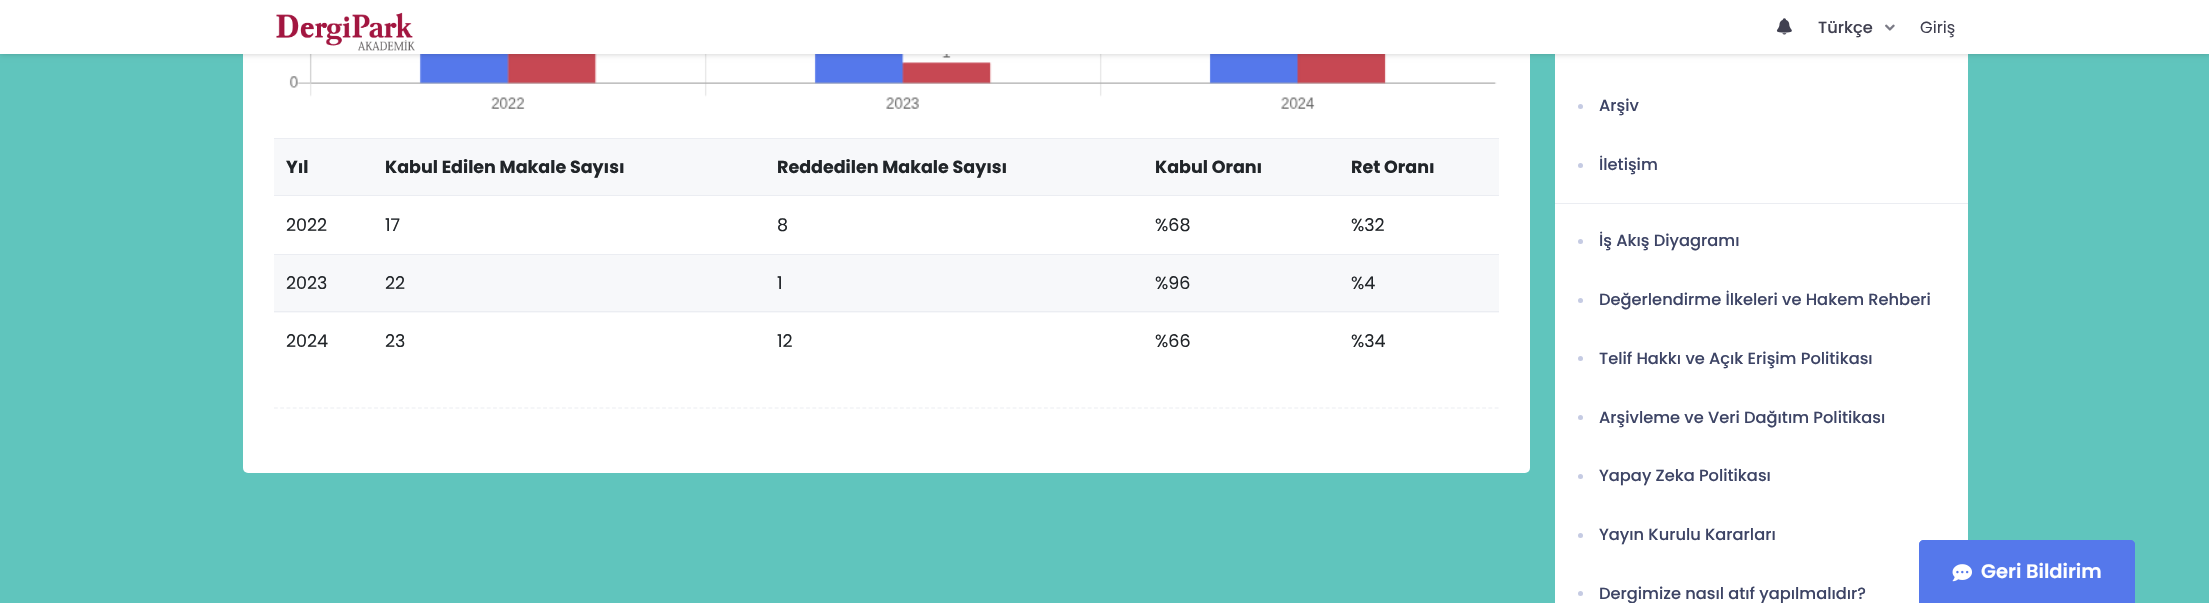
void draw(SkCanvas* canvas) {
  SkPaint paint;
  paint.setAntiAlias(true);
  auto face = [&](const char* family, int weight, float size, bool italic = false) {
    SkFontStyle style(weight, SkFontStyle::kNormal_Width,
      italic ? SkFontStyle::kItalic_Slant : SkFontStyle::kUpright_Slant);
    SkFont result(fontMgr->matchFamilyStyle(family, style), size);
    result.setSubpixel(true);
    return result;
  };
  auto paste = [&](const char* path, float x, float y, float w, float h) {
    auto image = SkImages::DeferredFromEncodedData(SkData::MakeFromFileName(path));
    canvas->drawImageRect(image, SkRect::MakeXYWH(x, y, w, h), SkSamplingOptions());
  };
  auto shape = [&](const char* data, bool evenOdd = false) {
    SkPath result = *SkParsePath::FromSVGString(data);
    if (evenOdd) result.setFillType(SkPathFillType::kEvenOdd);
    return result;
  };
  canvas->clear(0xff60c5bd);
  paint.setColor(0xffffffff);
  canvas->drawRoundRect(SkRect::MakeXYWH(243, -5, 1287, 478), 5, 5, paint);
  paste("img/4.png", 289, 54, 1208, 55);
  canvas->drawRect(SkRect::MakeXYWH(1555, 54, 413, 549), paint);
  paint.setColor(0x33000000);
  paint.setMaskFilter(SkMaskFilter::MakeBlur(kNormal_SkBlurStyle, 3));
  canvas->drawRect(SkRect::MakeXYWH(0, 0, 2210, 54), paint);
  paint.setMaskFilter(nullptr);
  paint.setColor(0xffffffff);
  canvas->drawRect(SkRect::MakeXYWH(0, 0, 2209, 54), paint);
  paste("img/1.png", 276, 12, 139, 39);
  paste("img/2.png", 1776, 18, 16, 17);
  paste("img/3.png", 1885, 24, 10, 7);
  {
    const struct { float x, y, w, h; SkColor color; } items[] = {
      {274, 139, 1225, 56, 0xfff7f8fa},
      {274, 138, 1225, 1, 0xffebedf2},
      {274, 195, 1225, 1, 0xffebedf2},
      {274, 255, 1225, 58, 0xfff7f8fa},
      {274, 254, 1225, 1, 0xffebedf2},
      {274, 311, 1225, 1, 0xffebedf2},
    };
    for (auto [x, y, w, h, color] : items) {
      paint.setColor(color);
      canvas->drawRect(SkRect::MakeXYWH(x, y, w, h), paint);
    }
  }
  paint.setStroke(true);
  paint.setStrokeWidth(1.2f);
  paint.setPathEffect(SkDashPathEffect::Make({{3.75f, 2.51f}}, 0));
  canvas->drawPath(shape("M274 408H1499"), paint);
  paint.setPathEffect(nullptr);
  paint.setStroke(false);
  paint.setColor(0xffc5cbe3);
  canvas->drawCircle(1580.5f, 106.5f, 2.5f, paint);
  canvas->drawCircle(1580.5f, 165.5f, 2.5f, paint);
  paint.setColor(0xffebedf2);
  canvas->drawRect(SkRect::MakeXYWH(1555, 203, 413, 1), paint);
  paint.setColor(0xffc5cbe3);
  canvas->drawCircle(1580.5f, 241.5f, 2.5f, paint);
  canvas->drawCircle(1580.5f, 300.5f, 2.5f, paint);
  canvas->drawCircle(1580.5f, 358.5f, 2.5f, paint);
  canvas->drawCircle(1580.5f, 417.5f, 2.5f, paint);
  canvas->drawCircle(1580.5f, 476.5f, 2.5f, paint);
  canvas->drawCircle(1580.5f, 535.5f, 2.5f, paint);
  canvas->drawCircle(1580.5f, 593.5f, 2.5f, paint);
  paint.setColor(0xff5578eb);
  canvas->drawPath(shape("M1923 540.5H2131C2133 540.5 2134.5 542 2134.5 544V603.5H1919.5V544C1919.5 542 1921 540.5 1923 540.5Z"), paint);
  paint.setStroke(true);
  paint.setStrokeWidth(1);
  canvas->drawPath(shape("M1923 540.5H2131C2133 540.5 2134.5 542 2134.5 544V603.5H1919.5V544C1919.5 542 1921 540.5 1923 540.5Z"), paint);
  paste("img/5.png", 1952, 564, 20, 18);
  auto f0 = face("Poppins", 500, 16.25f);
  paint.setStroke(false);
  paint.setColor(0xff404050);
  canvas->drawString("Türkçe", 1818, 33, f0, paint);
  auto f1 = face("Poppins", 400, 16.25f);
  canvas->drawString("Giriş", 1920, 33, f1, paint);
  auto f2 = face("Poppins", 700, 17.5f);
  paint.setColor(0xff212529);
  {
    const struct { const char* s; float x, y; } items[] = {
      {"Yıl", 286, 173},
      {"Kabul Edilen Makale Sayısı", 385, 173},
      {"Reddedilen Makale Sayısı", 777, 173},
      {"Kabul Oranı", 1155, 173},
      {"Ret Oranı", 1351, 173},
    };
    for (auto [s, x, y] : items) {
      canvas->drawString(s, x, y, f2, paint);
    }
  }
  auto f3 = face("Poppins", 400, 17.5f);
  {
    const struct { const char* s; float x, y; } items[] = {
      {"2022", 286, 231},
      {"17", 385, 231},
      {"8", 777, 231},
      {"%68", 1155, 231},
      {"%32", 1351, 231},
      {"2023", 286, 289},
      {"22", 385, 289},
      {"1", 777, 289},
      {"%96", 1155, 289},
      {"%4", 1351, 289},
      {"2024", 286, 347},
      {"23", 385, 347},
      {"12", 777, 347},
      {"%66", 1155, 347},
      {"%34", 1351, 347},
    };
    for (auto [s, x, y] : items) {
      canvas->drawString(s, x, y, f3, paint);
    }
  }
  paint.setColor(0xff3d4465);
  {
    const struct { const char* s; float x, y; } items[] = {
      {"Arşiv", 1599, 111},
      {"İletişim", 1599, 170},
      {"İş Akış Diyagramı", 1599, 246},
      {"Değerlendirme İlkeleri ve Hakem Rehberi", 1599, 305},
      {"Telif Hakkı ve Açık Erişim Politikası", 1599, 364},
      {"Arşivleme ve Veri Dağıtım Politikası", 1599, 423},
      {"Yapay Zeka Politikası", 1599, 481},
      {"Yayın Kurulu Kararları", 1599, 540},
      {"Dergimize nasıl atıf yapılmalıdır?", 1599, 599},
    };
    for (auto [s, x, y] : items) {
      canvas->drawString(s, x, y, f0, paint);
    }
  }
  auto f4 = face("Poppins", 600, 19.5f);
  paint.setColor(0xffffffff);
  canvas->drawString("Geri Bildirim", 1981, 578, f4, paint);
}
